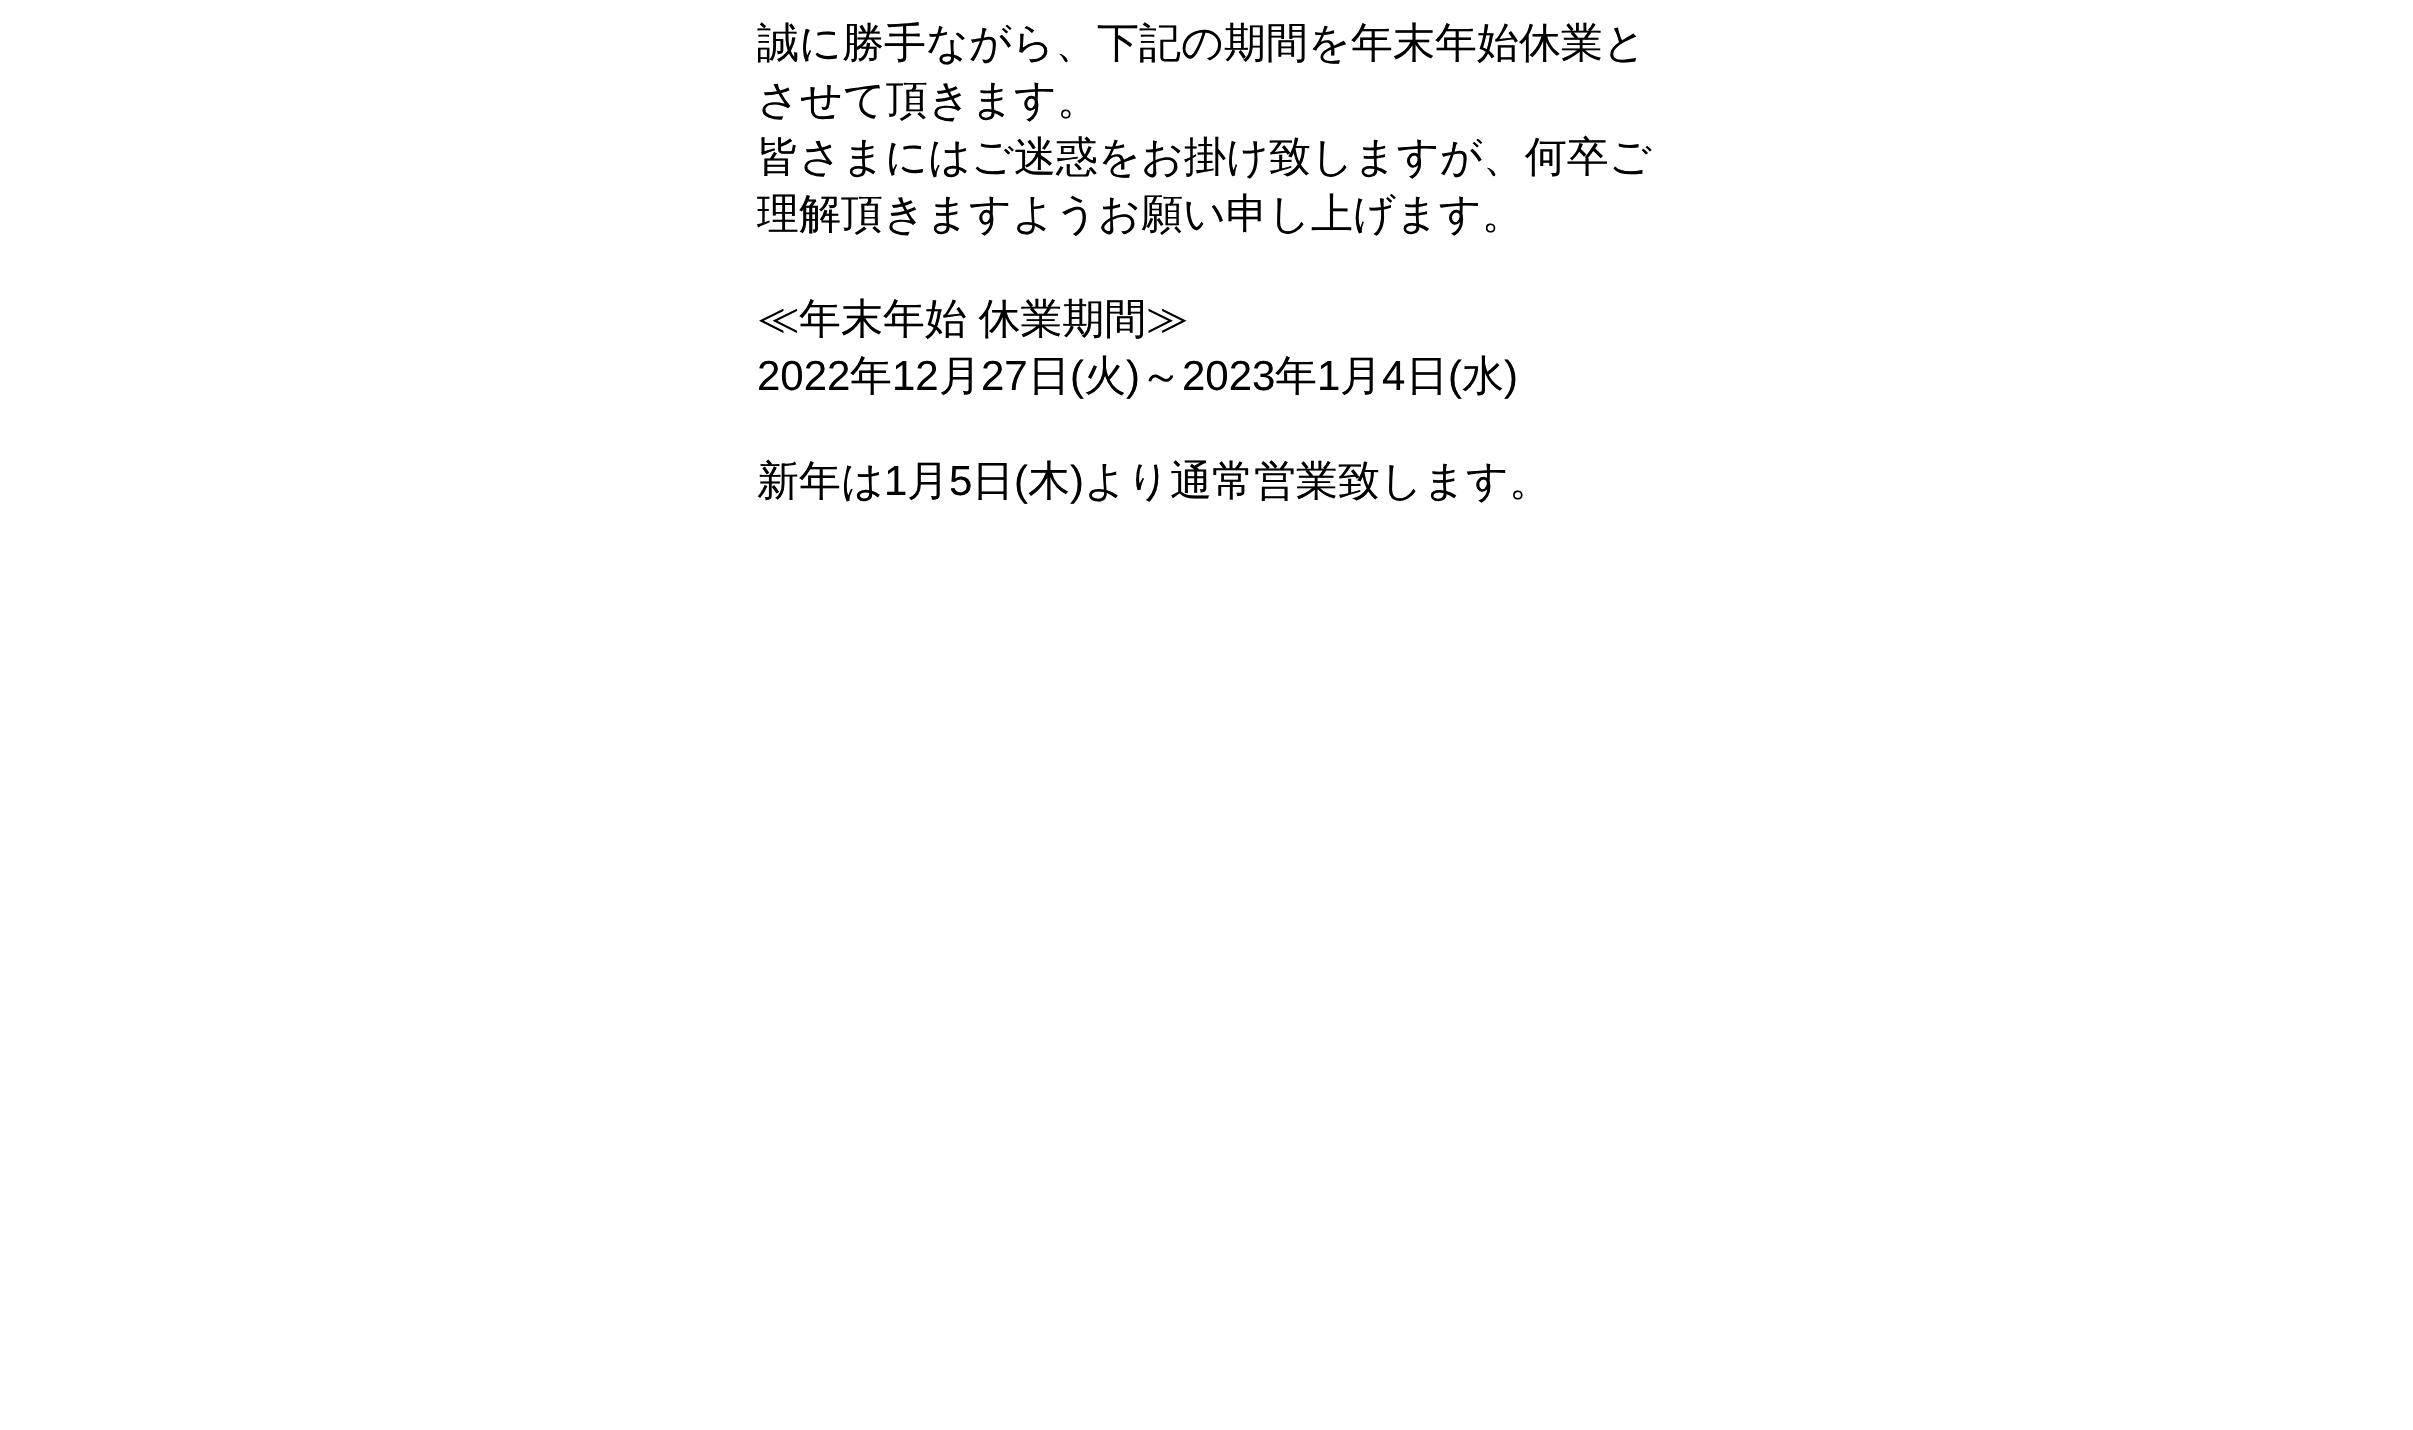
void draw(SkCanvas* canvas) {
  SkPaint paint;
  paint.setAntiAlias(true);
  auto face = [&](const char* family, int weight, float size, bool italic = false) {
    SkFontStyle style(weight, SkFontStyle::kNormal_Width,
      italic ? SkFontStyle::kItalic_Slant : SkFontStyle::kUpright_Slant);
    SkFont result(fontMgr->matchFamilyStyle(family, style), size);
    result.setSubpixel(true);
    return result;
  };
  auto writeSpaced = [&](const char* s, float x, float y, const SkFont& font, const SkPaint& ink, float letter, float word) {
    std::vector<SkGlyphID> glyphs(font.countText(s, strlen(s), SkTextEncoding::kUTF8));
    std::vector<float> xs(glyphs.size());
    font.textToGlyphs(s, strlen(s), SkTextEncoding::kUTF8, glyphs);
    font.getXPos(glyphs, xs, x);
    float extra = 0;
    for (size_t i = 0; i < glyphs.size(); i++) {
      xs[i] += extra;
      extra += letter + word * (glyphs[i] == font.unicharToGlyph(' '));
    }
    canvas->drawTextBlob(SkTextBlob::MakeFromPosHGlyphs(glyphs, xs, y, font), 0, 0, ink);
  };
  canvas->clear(0xffffffff);
  auto f0 = face("WenQuanYi Zen Hei", 500, 42);
  paint.setColor(0xff000000);
  {
    const struct { const char* s; float x, y; } items[] = {
      {"誠に勝手ながら、下記の期間を年末年始休業と", 757, 57},
      {"させて頂きます。", 757, 114},
      {"皆さまにはご迷惑をお掛け致しますが、何卒ご", 757, 171},
      {"理解頂きますようお願い申し上げます。", 757, 228},
    };
    for (auto [s, x, y] : items) {
      canvas->drawString(s, x, y, f0, paint);
    }
  }
  writeSpaced("≪年末年始 休業期間≫", 757, 333, f0, paint, 0, -1);
  auto f1 = face("Liberation Sans", 400, 42);
  canvas->drawString("2022", 757, 390, f1, paint);
  canvas->drawString("年", 850, 390, f0, paint);
  canvas->drawString("12", 892, 390, f1, paint);
  canvas->drawString("月", 939, 390, f0, paint);
  canvas->drawString("27", 981, 390, f1, paint);
  canvas->drawString("日", 1028, 390, f0, paint);
  canvas->drawString("(", 1070, 390, f1, paint);
  canvas->drawString("火", 1084, 390, f0, paint);
  canvas->drawString(")", 1126, 390, f1, paint);
  canvas->drawString("～", 1140, 390, f0, paint);
  canvas->drawString("2023", 1182, 390, f1, paint);
  canvas->drawString("年", 1275, 390, f0, paint);
  canvas->drawString("1", 1317, 390, f1, paint);
  canvas->drawString("月", 1340, 390, f0, paint);
  canvas->drawString("4", 1382, 390, f1, paint);
  canvas->drawString("日", 1406, 390, f0, paint);
  canvas->drawString("(", 1448, 390, f1, paint);
  canvas->drawString("水", 1462, 390, f0, paint);
  canvas->drawString(")", 1504, 390, f1, paint);
  canvas->drawString("新年は", 757, 495, f0, paint);
  canvas->drawString("1", 884, 495, f1, paint);
  canvas->drawString("月", 907, 495, f0, paint);
  canvas->drawString("5", 949, 495, f1, paint);
  canvas->drawString("日", 972, 495, f0, paint);
  canvas->drawString("(", 1014, 495, f1, paint);
  canvas->drawString("木", 1028, 495, f0, paint);
  canvas->drawString(")", 1070, 495, f1, paint);
  canvas->drawString("より通常営業致します。", 1084, 495, f0, paint);
}
